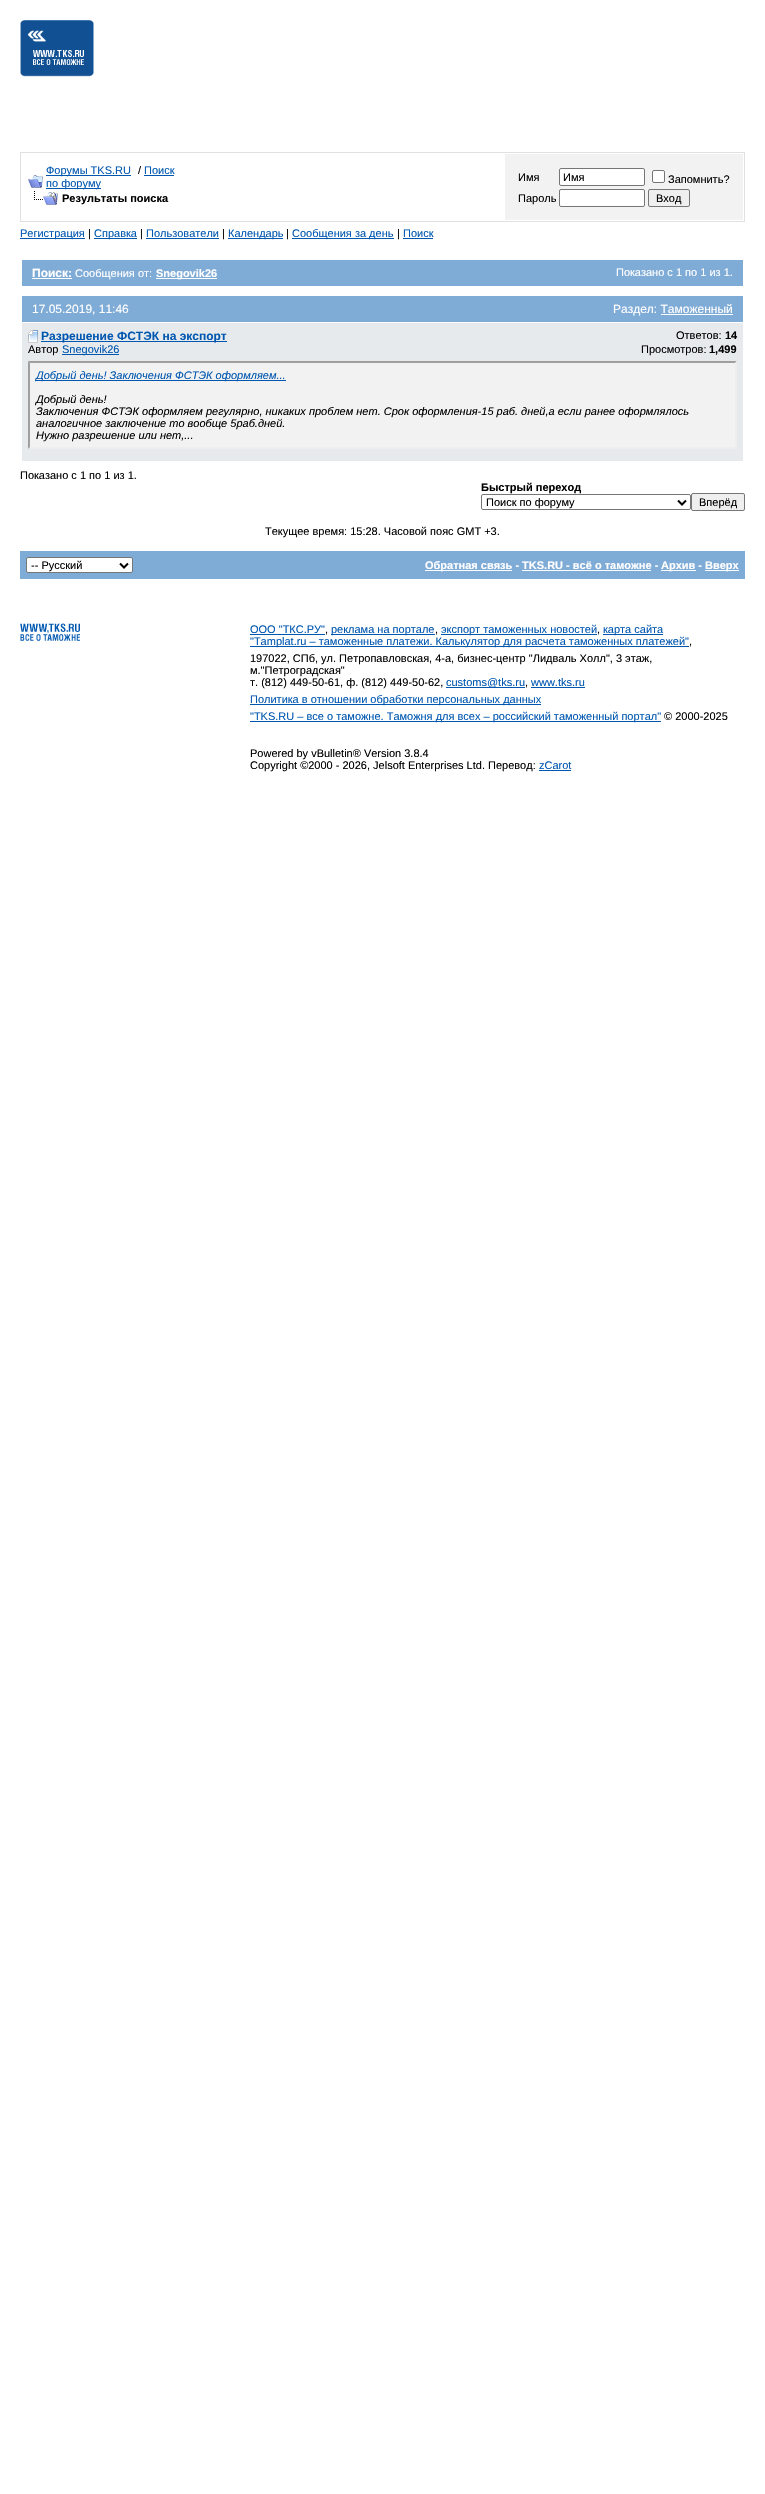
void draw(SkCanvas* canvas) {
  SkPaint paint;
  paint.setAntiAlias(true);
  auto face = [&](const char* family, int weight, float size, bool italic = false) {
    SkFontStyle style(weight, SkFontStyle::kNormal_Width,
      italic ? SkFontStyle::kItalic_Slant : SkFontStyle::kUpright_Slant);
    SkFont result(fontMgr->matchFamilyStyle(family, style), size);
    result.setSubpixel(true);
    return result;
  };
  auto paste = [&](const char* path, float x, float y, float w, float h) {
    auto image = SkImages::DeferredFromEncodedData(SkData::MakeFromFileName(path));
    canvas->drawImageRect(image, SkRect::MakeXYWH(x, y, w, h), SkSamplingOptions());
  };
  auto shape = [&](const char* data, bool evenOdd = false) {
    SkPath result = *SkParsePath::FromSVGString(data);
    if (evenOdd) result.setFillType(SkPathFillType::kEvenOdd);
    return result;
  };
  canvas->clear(0xffffffff);
  paste("img/1.png", 20, 20, 74, 57);
  paint.setStroke(true);
  paint.setStrokeWidth(1);
  paint.setColor(0xffe1e0e0);
  canvas->drawRect(SkRect::MakeXYWH(20.5f, 152.5f, 724, 69), paint);
  paste("img/2.png", 28, 175, 15, 13);
  paint.setStroke(false);
  {
    const struct { float x, y, w, h; SkColor color; } items[] = {
      {46, 175, 85, 1, 0xff0057b0},
      {144, 175, 30, 1, 0xff0057b0},
      {46, 188, 55, 1, 0xff0057b0},
    };
    for (auto [x, y, w, h, color] : items) {
      paint.setColor(color);
      canvas->drawRect(SkRect::MakeXYWH(x, y, w, h), paint);
    }
  }
  paste("img/3.png", 34, 191, 24, 14);
  paint.setColor(0xfff2f2f2);
  canvas->drawRect(SkRect::MakeXYWH(505, 154, 238, 66), paint);
  paint.setColor(0xffffffff);
  canvas->drawRoundRect(SkRect::MakeXYWH(559.5f, 168.5f, 85, 17), 1.5f, 1.5f, paint);
  paint.setStroke(true);
  paint.setColor(0xff767676);
  canvas->drawRoundRect(SkRect::MakeXYWH(559.5f, 168.5f, 85, 17), 1.5f, 1.5f, paint);
  paint.setStroke(false);
  paint.setColor(0xffffffff);
  canvas->drawRoundRect(SkRect::MakeXYWH(652.5f, 170.5f, 12, 12), 1.5f, 1.5f, paint);
  paint.setStroke(true);
  paint.setColor(0xff767676);
  canvas->drawRoundRect(SkRect::MakeXYWH(652.5f, 170.5f, 12, 12), 1.5f, 1.5f, paint);
  paint.setStroke(false);
  paint.setColor(0xffffffff);
  canvas->drawRoundRect(SkRect::MakeXYWH(559.5f, 189.5f, 85, 17), 1.5f, 1.5f, paint);
  paint.setStroke(true);
  paint.setColor(0xff767676);
  canvas->drawRoundRect(SkRect::MakeXYWH(559.5f, 189.5f, 85, 17), 1.5f, 1.5f, paint);
  paint.setStroke(false);
  paint.setColor(0xffefefef);
  canvas->drawRoundRect(SkRect::MakeXYWH(648.5f, 189.5f, 41, 17), 1.5f, 1.5f, paint);
  paint.setStroke(true);
  paint.setColor(0xff767676);
  canvas->drawRoundRect(SkRect::MakeXYWH(648.5f, 189.5f, 41, 17), 1.5f, 1.5f, paint);
  paint.setStroke(false);
  {
    const struct { float x, y, w, h; SkColor color; } items[] = {
      {20, 238, 65, 1, 0xff0057b0},
      {94, 238, 43, 1, 0xff0057b0},
      {146, 238, 73, 1, 0xff0057b0},
      {228, 238, 55, 1, 0xff0057b0},
      {292, 238, 102, 1, 0xff0057b0},
      {403, 238, 30, 1, 0xff0057b0},
      {22, 260, 721, 26, 0xff7fabd7},
      {32, 278, 40, 1, 0xffffffff},
      {156, 278, 61, 1, 0xffffffff},
      {22, 296, 721, 26, 0xff7fabd7},
      {661, 314, 72, 1, 0xffffffff},
      {22, 323, 721, 138, 0xffe7eaed},
    };
    for (auto [x, y, w, h, color] : items) {
      paint.setColor(color);
      canvas->drawRect(SkRect::MakeXYWH(x, y, w, h), paint);
    }
  }
  paste("img/4.png", 28, 330, 10, 13);
  {
    const struct { float x, y, w, h; SkColor color; } items[] = {
      {41, 341, 186, 1, 0xff0057b0},
      {62, 354, 57, 1, 0xff0057b0},
      {28, 361, 709, 88, 0xfff2f2f2},
    };
    for (auto [x, y, w, h, color] : items) {
      paint.setColor(color);
      canvas->drawRect(SkRect::MakeXYWH(x, y, w, h), paint);
    }
  }
  paint.setColor(0xff9f9f9f);
  canvas->drawPath(shape("M28 361H737L735 363H30Z"), paint);
  paint.setColor(0xffeeeeee);
  canvas->drawPath(shape("M737 361V449L735 447V363Z"), paint);
  canvas->drawPath(shape("M737 449H28L30 447H735Z"), paint);
  paint.setColor(0xff9f9f9f);
  canvas->drawPath(shape("M28 449V361L30 363V447Z"), paint);
  paint.setColor(0xff0057b0);
  canvas->drawRect(SkRect::MakeXYWH(36, 380, 250, 1), paint);
  paint.setStroke(true);
  paint.setColor(0xff767676);
  canvas->drawRoundRect(SkRect::MakeXYWH(481.5f, 494.5f, 209, 15), 1.5f, 1.5f, paint);
  paint.setStrokeWidth(2);
  paint.setColor(0xff000000);
  canvas->drawPath(shape("M678 500.5L682 504.5L686 500.5"), paint);
  paint.setStroke(false);
  paint.setColor(0xffefefef);
  canvas->drawRoundRect(SkRect::MakeXYWH(691.5f, 493.5f, 53, 17), 1.5f, 1.5f, paint);
  paint.setStroke(true);
  paint.setStrokeWidth(1);
  paint.setColor(0xff767676);
  canvas->drawRoundRect(SkRect::MakeXYWH(691.5f, 493.5f, 53, 17), 1.5f, 1.5f, paint);
  paint.setStroke(false);
  paint.setColor(0xff7fabd7);
  canvas->drawRect(SkRect::MakeXYWH(20, 551, 725, 28), paint);
  paint.setColor(0xffffffff);
  canvas->drawRoundRect(SkRect::MakeXYWH(26.5f, 557.5f, 106, 15), 1.5f, 1.5f, paint);
  paint.setStroke(true);
  paint.setColor(0xff767676);
  canvas->drawRoundRect(SkRect::MakeXYWH(26.5f, 557.5f, 106, 15), 1.5f, 1.5f, paint);
  paint.setStrokeWidth(2);
  paint.setColor(0xff000000);
  canvas->drawPath(shape("M120 563.5L124 567.5L128 563.5"), paint);
  paint.setStroke(false);
  {
    const struct { float x, y, w, h; SkColor color; } items[] = {
      {425, 570, 87, 1, 0xffffffff},
      {522, 570, 129, 1, 0xffffffff},
      {661, 570, 35, 1, 0xffffffff},
      {705, 570, 34, 1, 0xffffffff},
    };
    for (auto [x, y, w, h, color] : items) {
      paint.setColor(color);
      canvas->drawRect(SkRect::MakeXYWH(x, y, w, h), paint);
    }
  }
  paste("img/5.png", 20, 623, 60, 18);
  {
    const struct { float x, y, w, h; SkColor color; } items[] = {
      {250, 634, 75, 1, 0xff0057b0},
      {331, 634, 104, 1, 0xff0057b0},
      {441, 634, 156, 1, 0xff0057b0},
      {603, 634, 60, 1, 0xff0057b0},
      {250, 646, 439, 1, 0xff0057b0},
      {446, 687, 79, 1, 0xff0057b0},
      {531, 687, 54, 1, 0xff0057b0},
      {250, 704, 291, 1, 0xff0057b0},
      {250, 721, 411, 1, 0xff0057b0},
      {539, 770, 32, 1, 0xff0057b0},
    };
    for (auto [x, y, w, h, color] : items) {
      paint.setColor(color);
      canvas->drawRect(SkRect::MakeXYWH(x, y, w, h), paint);
    }
  }
  auto f0 = face("Liberation Sans", 400, 11);
  canvas->drawString("Форумы TKS.RU", 46, 174, f0, paint);
  paint.setColor(0xff000000);
  canvas->drawString("/", 138, 174, f0, paint);
  paint.setColor(0xff0057b0);
  canvas->drawString("Поиск", 144, 174, f0, paint);
  canvas->drawString("по форуму", 46, 187, f0, paint);
  auto f1 = face("Liberation Sans", 700, 11);
  paint.setColor(0xff000000);
  canvas->drawString("Результаты поиска", 62, 202, f1, paint);
  {
    const struct { const char* s; float x, y; } items[] = {
      {"Имя", 518, 181},
      {"Имя", 563, 181},
      {"Запомнить?", 668, 183},
      {"Пароль", 518, 202},
      {"Вход", 656, 202},
    };
    for (auto [s, x, y] : items) {
      canvas->drawString(s, x, y, f0, paint);
    }
  }
  paint.setColor(0xff0057b0);
  canvas->drawString("Регистрация", 20, 237, f0, paint);
  paint.setColor(0xff000000);
  canvas->drawString("|", 88, 237, f0, paint);
  paint.setColor(0xff0057b0);
  canvas->drawString("Справка", 94, 237, f0, paint);
  paint.setColor(0xff000000);
  canvas->drawString("|", 140, 237, f0, paint);
  paint.setColor(0xff0057b0);
  canvas->drawString("Пользователи", 146, 237, f0, paint);
  paint.setColor(0xff000000);
  canvas->drawString("|", 222, 237, f0, paint);
  paint.setColor(0xff0057b0);
  canvas->drawString("Календарь", 228, 237, f0, paint);
  paint.setColor(0xff000000);
  canvas->drawString("|", 286, 237, f0, paint);
  paint.setColor(0xff0057b0);
  canvas->drawString("Сообщения за день", 292, 237, f0, paint);
  paint.setColor(0xff000000);
  canvas->drawString("|", 397, 237, f0, paint);
  paint.setColor(0xff0057b0);
  canvas->drawString("Поиск", 403, 237, f0, paint);
  auto f2 = face("Liberation Sans", 700, 12);
  paint.setColor(0xffffffff);
  canvas->drawString("Поиск:", 32, 277, f2, paint);
  canvas->drawString("Сообщения от:", 75, 277, f0, paint);
  canvas->drawString("Snegovik26", 156, 277, f1, paint);
  canvas->drawString("Показано с 1 по 1 из 1.", 616, 276, f0, paint);
  auto f3 = face("Liberation Sans", 400, 12);
  canvas->drawString("17.05.2019, 11:46", 32, 313, f3, paint);
  canvas->drawString("Раздел: Таможенный", 613, 313, f3, paint);
  paint.setColor(0xff0057b0);
  canvas->drawString("Разрешение ФСТЭК на экспорт", 41, 340, f2, paint);
  paint.setColor(0xff000000);
  canvas->drawString("Ответов:", 676, 339, f0, paint);
  canvas->drawString("14", 725, 339, f1, paint);
  canvas->drawString("Автор", 28, 353, f0, paint);
  paint.setColor(0xff0057b0);
  canvas->drawString("Snegovik26", 62, 353, f0, paint);
  paint.setColor(0xff000000);
  canvas->drawString("Просмотров:", 641, 353, f0, paint);
  canvas->drawString("1,499", 709, 353, f1, paint);
  auto f4 = face("Liberation Sans", 400, 11, true);
  paint.setColor(0xff0057b0);
  canvas->drawString("Добрый день! Заключения ФСТЭК оформляем...", 36, 379, f4, paint);
  paint.setColor(0xff000000);
  {
    const struct { const char* s; float x, y; } items[] = {
      {"Добрый день!", 36, 403},
      {"Заключения ФСТЭК оформляем регулярно, никаких проблем нет. Срок оформления-15 раб. дней,а если ранее оформлялось", 36, 415},
      {"аналогичное заключение то вообще 5раб.дней.", 36, 427},
      {"Нужно разрешение или нет,...", 36, 439},
    };
    for (auto [s, x, y] : items) {
      canvas->drawString(s, x, y, f4, paint);
    }
  }
  canvas->drawString("Показано с 1 по 1 из 1.", 20, 479, f0, paint);
  canvas->drawString("Быстрый переход", 481, 491, f1, paint);
  {
    const struct { const char* s; float x, y; } items[] = {
      {"Поиск по форуму", 486, 506},
      {"Вперёд", 699, 506},
      {"Текущее время: 15:28. Часовой пояс GMT +3.", 265, 535},
      {"-- Русский", 31, 569},
    };
    for (auto [s, x, y] : items) {
      canvas->drawString(s, x, y, f0, paint);
    }
  }
  paint.setColor(0xffffffff);
  {
    const struct { const char* s; float x, y; } items[] = {
      {"Обратная связь - TKS.RU - всё о таможне -", 425, 569},
      {"Архив -", 661, 569},
      {"Вверх", 705, 569},
    };
    for (auto [s, x, y] : items) {
      canvas->drawString(s, x, y, f1, paint);
    }
  }
  paint.setColor(0xff0057b0);
  canvas->drawString("ООО \"ТКС.РУ\"", 250, 633, f0, paint);
  paint.setColor(0xff000000);
  canvas->drawString(",", 325, 633, f0, paint);
  paint.setColor(0xff0057b0);
  canvas->drawString("реклама на портале", 331, 633, f0, paint);
  paint.setColor(0xff000000);
  canvas->drawString(",", 435, 633, f0, paint);
  paint.setColor(0xff0057b0);
  canvas->drawString("экспорт таможенных новостей", 441, 633, f0, paint);
  paint.setColor(0xff000000);
  canvas->drawString(",", 597, 633, f0, paint);
  paint.setColor(0xff0057b0);
  canvas->drawString("карта сайта", 603, 633, f0, paint);
  canvas->drawString("\"Tamplat.ru – таможенные платежи. Калькулятор для расчета таможенных платежей\"", 250, 645, f0, paint);
  paint.setColor(0xff000000);
  {
    const struct { const char* s; float x, y; } items[] = {
      {",", 689, 645},
      {"197022, СПб, ул. Петропавловская, 4-а, бизнес-центр \"Лидваль Холл\", 3 этаж,", 250, 662},
      {"м.\"Петроградская\"", 250, 674},
      {"т. (812) 449-50-61, ф. (812) 449-50-62,", 250, 686},
    };
    for (auto [s, x, y] : items) {
      canvas->drawString(s, x, y, f0, paint);
    }
  }
  paint.setColor(0xff0057b0);
  canvas->drawString("customs@tks.ru", 446, 686, f0, paint);
  paint.setColor(0xff000000);
  canvas->drawString(",", 525, 686, f0, paint);
  paint.setColor(0xff0057b0);
  {
    const struct { const char* s; float x, y; } items[] = {
      {"www.tks.ru", 531, 686},
      {"Политика в отношении обработки персональных данных", 250, 703},
      {"\"TKS.RU – все о таможне. Таможня для всех – российский таможенный портал\"", 250, 720},
    };
    for (auto [s, x, y] : items) {
      canvas->drawString(s, x, y, f0, paint);
    }
  }
  paint.setColor(0xff000000);
  {
    const struct { const char* s; float x, y; } items[] = {
      {"© 2000-2025", 664, 720},
      {"Powered by vBulletin® Version 3.8.4", 250, 757},
      {"Copyright ©2000 - 2026, Jelsoft Enterprises Ltd. Перевод:", 250, 769},
    };
    for (auto [s, x, y] : items) {
      canvas->drawString(s, x, y, f0, paint);
    }
  }
  paint.setColor(0xff0057b0);
  canvas->drawString("zCarot", 539, 769, f0, paint);
}
